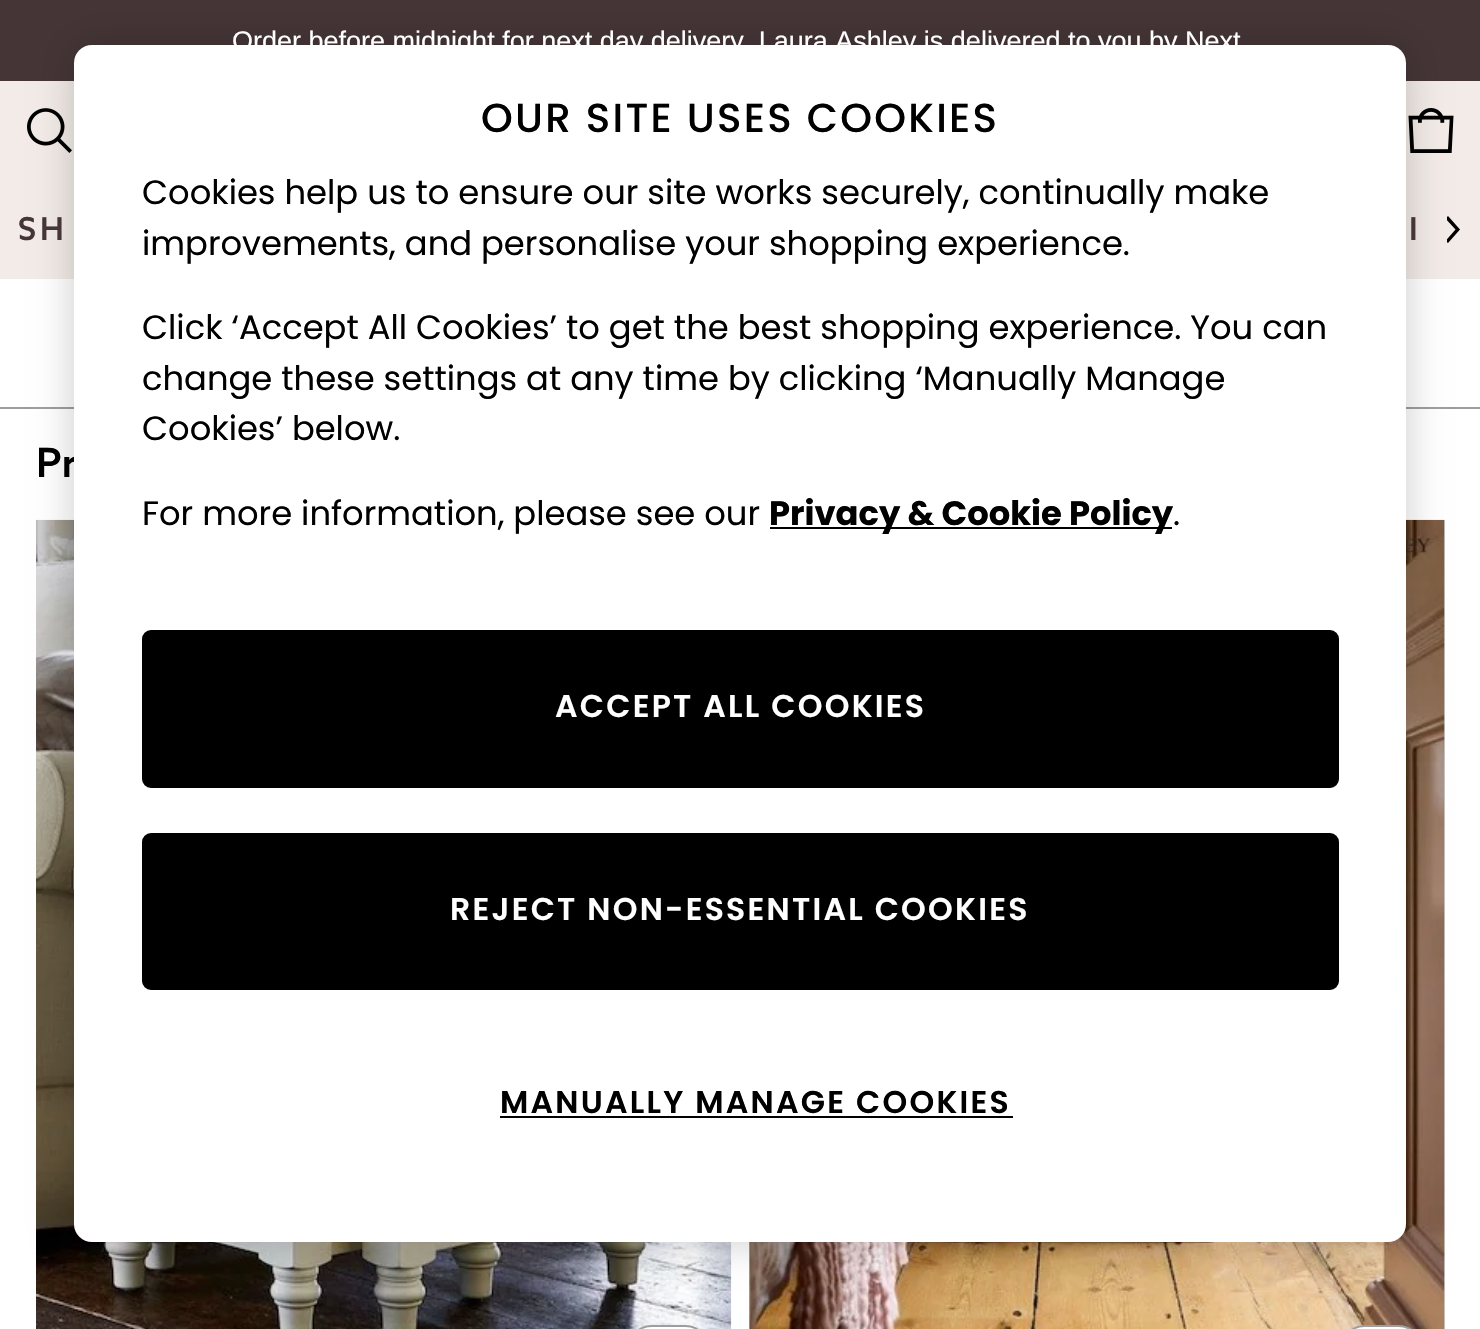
void draw(SkCanvas* canvas) {
  SkPaint paint;
  paint.setAntiAlias(true);
  auto face = [&](const char* family, int weight, float size, bool italic = false) {
    SkFontStyle style(weight, SkFontStyle::kNormal_Width,
      italic ? SkFontStyle::kItalic_Slant : SkFontStyle::kUpright_Slant);
    SkFont result(fontMgr->matchFamilyStyle(family, style), size);
    result.setSubpixel(true);
    return result;
  };
  auto writeSpaced = [&](const char* s, float x, float y, const SkFont& font, const SkPaint& ink, float letter, float word) {
    std::vector<SkGlyphID> glyphs(font.countText(s, strlen(s), SkTextEncoding::kUTF8));
    std::vector<float> xs(glyphs.size());
    font.textToGlyphs(s, strlen(s), SkTextEncoding::kUTF8, glyphs);
    font.getXPos(glyphs, xs, x);
    float extra = 0;
    for (size_t i = 0; i < glyphs.size(); i++) {
      xs[i] += extra;
      extra += letter + word * (glyphs[i] == font.unicharToGlyph(' '));
    }
    canvas->drawTextBlob(SkTextBlob::MakeFromPosHGlyphs(glyphs, xs, y, font), 0, 0, ink);
  };
  auto paste = [&](const char* path, float x, float y, float w, float h) {
    auto image = SkImages::DeferredFromEncodedData(SkData::MakeFromFileName(path));
    canvas->drawImageRect(image, SkRect::MakeXYWH(x, y, w, h), SkSamplingOptions());
  };
  auto shape = [&](const char* data, bool evenOdd = false) {
    SkPath result = *SkParsePath::FromSVGString(data);
    if (evenOdd) result.setFillType(SkPathFillType::kEvenOdd);
    return result;
  };
  canvas->clear(0xffffffff);
  paint.setColor(0xff453536);
  canvas->drawRect(SkRect::MakeXYWH(0, 0, 1480, 81), paint);
  paint.setColor(0xfff2ebe7);
  canvas->drawRect(SkRect::MakeXYWH(0, 81, 1480, 198), paint);
  paste("img/1.png", 27, 108, 45, 45);
  paste("img/2.png", 1408, 108, 46, 45);
  canvas->save();
  canvas->clipRect(SkRect::MakeXYWH(1447, 216, 16, 27));
  paint.setColor(0xff000000);
  canvas->drawPath(shape("M1445.5 218.5L1448 216L1460 229.5L1448 243L1445.5 241L1455.5 229.5Z", true), paint);
  canvas->restore();
  paint.setColor(0xff9e9e9e);
  canvas->drawRect(SkRect::MakeXYWH(0, 407, 1480, 2), paint);
  paste("img/3.png", 36, 519, 696, 810);
  paint.setColor(0xffffffff);
  canvas->drawRoundRect(SkRect::MakeXYWH(629, 1326, 79, 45), 39.5f, 39.5f, paint);
  paint.setStroke(true);
  paint.setStrokeWidth(2);
  paint.setColor(0xff9e9e9e);
  canvas->drawRoundRect(SkRect::MakeXYWH(629, 1326, 79, 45), 39.5f, 39.5f, paint);
  paint.setStroke(false);
  paint.setColor(0xffd1d1d1);
  canvas->drawRect(SkRect::MakeXYWH(749, 520, 696, 809), paint);
  paste("img/4.png", 749, 519, 696, 810);
  paint.setColor(0xffffffff);
  canvas->drawRoundRect(SkRect::MakeXYWH(1342, 1326, 79, 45), 39.5f, 39.5f, paint);
  paint.setStroke(true);
  paint.setColor(0xff9e9e9e);
  canvas->drawRoundRect(SkRect::MakeXYWH(1342, 1326, 79, 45), 39.5f, 39.5f, paint);
  paint.setStroke(false);
  paint.setColor(0x33000000);
  paint.setMaskFilter(SkMaskFilter::MakeBlur(kNormal_SkBlurStyle, 20));
  canvas->drawRoundRect(SkRect::MakeXYWH(74, 45, 1332, 1197), 18, 18, paint);
  paint.setMaskFilter(nullptr);
  auto f0 = face("Liberation Sans", 400, 27);
  paint.setColor(0xffffffff);
  canvas->drawString("Order before midnight for next day delivery. Laura Ashley is delivered to you by Next", 232, 50, f0, paint);
  auto f1 = face("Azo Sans", 600, 31.5f);
  paint.setColor(0xff453536);
  writeSpaced("SH", 18, 240, f1, paint, 4, 0);
  writeSpaced("I", 1409, 240, f1, paint, 4, 0);
  auto f2 = face("Azo Sans", 600, 40.5f);
  paint.setColor(0xff000000);
  canvas->drawString("Pr", 36, 477, f2, paint);
  paint.setColor(0xffffffff);
  canvas->drawRoundRect(SkRect::MakeXYWH(74, 45, 1332, 1197), 18, 18, paint);
  auto f3 = face("Poppins", 500, 40.5f);
  paint.setColor(0xff000000);
  writeSpaced("OUR SITE USES COOKIES", 481, 132, f3, paint, 2.25f, 0);
  auto f4 = face("Poppins", 400, 33.75f);
  {
    const struct { const char* s; float x, y; } items[] = {
      {"Cookies help us to ensure our site works securely, continually make", 142, 204},
      {"improvements, and personalise your shopping experience.", 142, 255},
      {"Click ‘Accept All Cookies’ to get the best shopping experience. You can", 142, 339},
      {"change these settings at any time by clicking ‘Manually Manage", 142, 390},
      {"Cookies’ below.", 142, 440},
      {"For more information, please see our", 142, 525},
    };
    for (auto [s, x, y] : items) {
      canvas->drawString(s, x, y, f4, paint);
    }
  }
  canvas->drawRect(SkRect::MakeXYWH(770, 527, 402, 2), paint);
  auto f5 = face("Poppins", 700, 33.75f);
  canvas->drawString("Privacy & Cookie Policy", 769, 525, f5, paint);
  canvas->drawString(".", 1173, 525, f4, paint);
  canvas->drawRoundRect(SkRect::MakeXYWH(143, 631, 1195, 156), 8, 8, paint);
  paint.setStroke(true);
  canvas->drawRoundRect(SkRect::MakeXYWH(143, 631, 1195, 156), 8, 8, paint);
  auto f6 = face("Poppins", 600, 31.5f);
  paint.setStroke(false);
  paint.setColor(0xffffffff);
  writeSpaced("ACCEPT ALL COOKIES", 555, 717, f6, paint, 2.25f, 0);
  paint.setColor(0xff000000);
  canvas->drawRoundRect(SkRect::MakeXYWH(143, 834, 1195, 155), 8, 8, paint);
  paint.setStroke(true);
  canvas->drawRoundRect(SkRect::MakeXYWH(143, 834, 1195, 155), 8, 8, paint);
  paint.setStroke(false);
  paint.setColor(0xffffffff);
  writeSpaced("REJECT NON-ESSENTIAL COOKIES", 450, 920, f6, paint, 2.25f, 0);
  paint.setColor(0xff000000);
  writeSpaced("MANUALLY MANAGE COOKIES", 500, 1113, f6, paint, 2.25f, 0);
  canvas->drawRect(SkRect::MakeXYWH(500, 1116, 513, 2), paint);
}
